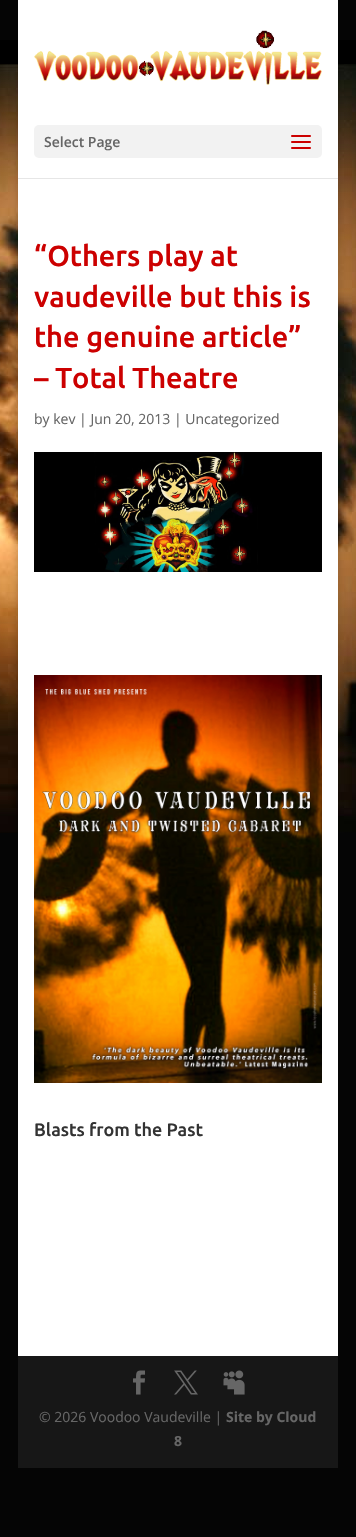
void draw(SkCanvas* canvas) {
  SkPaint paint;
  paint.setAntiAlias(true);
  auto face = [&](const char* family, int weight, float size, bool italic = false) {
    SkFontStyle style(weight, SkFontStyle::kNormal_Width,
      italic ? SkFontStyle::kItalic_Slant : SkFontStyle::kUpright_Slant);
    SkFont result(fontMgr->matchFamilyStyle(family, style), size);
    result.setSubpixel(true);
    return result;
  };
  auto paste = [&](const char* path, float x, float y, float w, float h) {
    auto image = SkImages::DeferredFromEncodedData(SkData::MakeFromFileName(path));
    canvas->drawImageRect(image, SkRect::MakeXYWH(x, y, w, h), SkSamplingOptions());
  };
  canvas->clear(0xff050505);
  paste("img/1.png", 0, 40, 356, 793);
  paint.setColor(0x33000000);
  paint.setMaskFilter(SkMaskFilter::MakeBlur(kNormal_SkBlurStyle, 5));
  canvas->drawRect(SkRect::MakeXYWH(18, 0, 320, 1468), paint);
  paint.setMaskFilter(nullptr);
  paint.setColor(0xffe6e6e6);
  canvas->drawRect(SkRect::MakeXYWH(18, 178, 320, 1), paint);
  paint.setColor(0xffffffff);
  canvas->drawRect(SkRect::MakeXYWH(18, 0, 320, 178), paint);
  paste("img/2.png", 34, 30, 288, 55);
  paint.setColor(0xfff2f2f2);
  canvas->drawRoundRect(SkRect::MakeXYWH(34, 125, 288, 33), 5, 5, paint);
  paste("img/3.png", 291, 135, 20, 14);
  paint.setColor(0xffffffff);
  canvas->drawRect(SkRect::MakeXYWH(18, 179, 320, 1177), paint);
  paste("img/4.png", 34, 452, 288, 120);
  paste("img/5.png", 34, 675, 288, 408);
  paint.setColor(0xff171717);
  canvas->drawRect(SkRect::MakeXYWH(18, 1356, 320, 112), paint);
  paste("img/6.png", 133, 1370, 12, 25);
  paste("img/7.png", 174, 1370, 24, 25);
  paste("img/8.png", 223, 1370, 22, 25);
  auto f0 = face("Open Sans", 600, 14);
  paint.setColor(0xff666666);
  canvas->drawString("Select Page", 44, 147, f0, paint);
  auto f1 = face("Ubuntu", 500, 29);
  paint.setColor(0xffcc0000);
  {
    const struct { const char* s; float x, y; } items[] = {
      {"“Others play at", 34, 266},
      {"vaudeville but this is", 34, 307},
      {"the genuine article”", 34, 347},
      {"– Total Theatre", 34, 388},
    };
    for (auto [s, x, y] : items) {
      canvas->drawString(s, x, y, f1, paint);
    }
  }
  auto f2 = face("Open Sans", 400, 14);
  paint.setColor(0xff666666);
  canvas->drawString("by kev | Jun 20, 2013 | Uncategorized", 34, 424, f2, paint);
  auto f3 = face("Ubuntu", 500, 18);
  paint.setColor(0xff333333);
  canvas->drawString("Blasts from the Past", 34, 1136, f3, paint);
  paint.setColor(0xff666666);
  canvas->drawString("© 2026 Voodoo Vaudeville |", 39, 1422, f2, paint);
  auto f4 = face("Open Sans", 700, 14);
  canvas->drawString("Site by Cloud", 226, 1422, f4, paint);
  canvas->drawString("8", 174, 1446, f4, paint);
}
